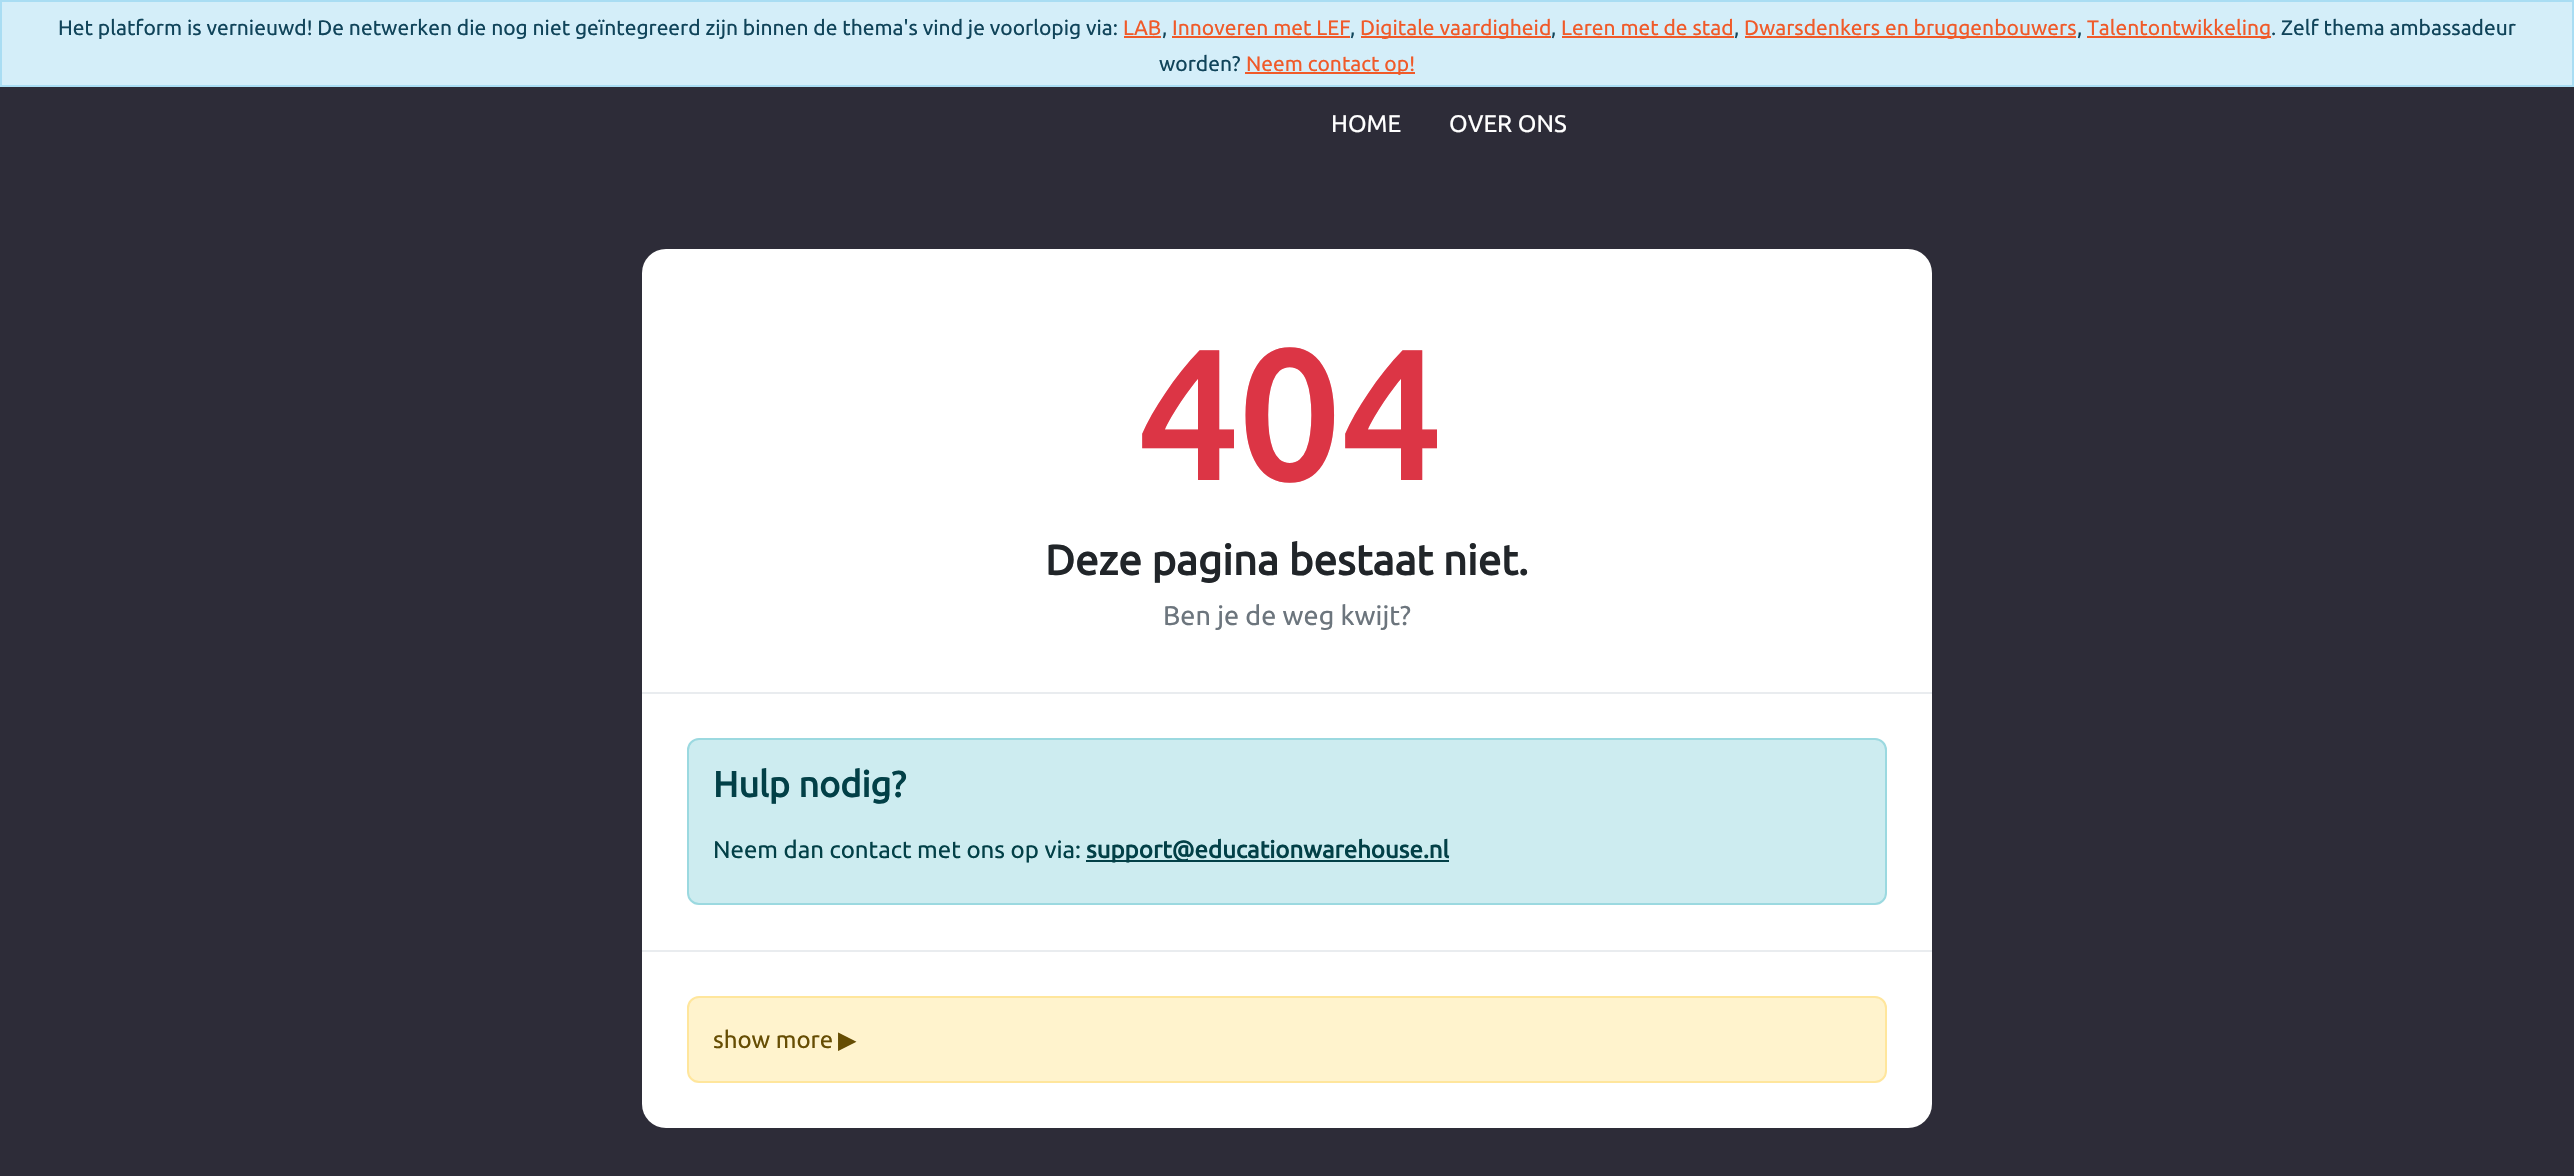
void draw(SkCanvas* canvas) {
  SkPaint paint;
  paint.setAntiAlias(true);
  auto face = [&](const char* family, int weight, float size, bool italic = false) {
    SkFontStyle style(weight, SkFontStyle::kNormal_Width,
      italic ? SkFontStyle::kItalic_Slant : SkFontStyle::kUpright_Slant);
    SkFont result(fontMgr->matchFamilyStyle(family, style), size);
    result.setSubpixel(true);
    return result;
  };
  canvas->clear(0xff2d2c38);
  paint.setColor(0xffd4eef9);
  canvas->drawRect(SkRect::MakeXYWH(1, 1, 2572, 85), paint);
  paint.setStroke(true);
  paint.setStrokeWidth(2);
  paint.setColor(0xffa9ddf3);
  canvas->drawRect(SkRect::MakeXYWH(1, 1, 2572, 85), paint);
  paint.setStroke(false);
  {
    const struct { float x, y, w, h; SkColor color; } items[] = {
      {1124, 36, 37, 2, 0xfff05a29},
      {1172, 36, 178, 2, 0xfff05a29},
      {1361, 36, 190, 2, 0xfff05a29},
      {1562, 36, 172, 2, 0xfff05a29},
      {1745, 36, 331, 2, 0xfff05a29},
      {2087, 36, 184, 2, 0xfff05a29},
      {1245, 72, 170, 2, 0xfff05a29},
    };
    for (auto [x, y, w, h, color] : items) {
      paint.setColor(color);
      canvas->drawRect(SkRect::MakeXYWH(x, y, w, h), paint);
    }
  }
  paint.setColor(0xffffffff);
  canvas->drawRoundRect(SkRect::MakeXYWH(642, 249, 1290, 879), 24, 24, paint);
  paint.setColor(0xffe9ecef);
  canvas->drawRect(SkRect::MakeXYWH(642, 692, 1290, 2), paint);
  canvas->drawRect(SkRect::MakeXYWH(642, 950, 1290, 2), paint);
  paint.setColor(0xffcdecf0);
  canvas->drawRoundRect(SkRect::MakeXYWH(688, 739, 1198, 165), 11, 11, paint);
  paint.setStroke(true);
  paint.setColor(0xff9bd9e0);
  canvas->drawRoundRect(SkRect::MakeXYWH(688, 739, 1198, 165), 11, 11, paint);
  paint.setStroke(false);
  paint.setColor(0xff024047);
  canvas->drawRect(SkRect::MakeXYWH(1086, 860, 363, 2), paint);
  paint.setColor(0xfffff3cd);
  canvas->drawRoundRect(SkRect::MakeXYWH(688, 997, 1198, 85), 11, 11, paint);
  paint.setStroke(true);
  paint.setColor(0xffffe69c);
  canvas->drawRoundRect(SkRect::MakeXYWH(688, 997, 1198, 85), 11, 11, paint);
  auto f0 = face("Ubuntu", 400, 21);
  paint.setStroke(false);
  paint.setColor(0xff10445a);
  canvas->drawString("Het platform is vernieuwd! De netwerken die nog niet geïntegreerd zijn binnen de thema's vind je voorlopig via:", 58, 35, f0, paint);
  paint.setColor(0xfff05a29);
  canvas->drawString("LAB", 1123, 35, f0, paint);
  paint.setColor(0xff10445a);
  canvas->drawString(",", 1162, 35, f0, paint);
  paint.setColor(0xfff05a29);
  canvas->drawString("Innoveren met LEF", 1172, 35, f0, paint);
  paint.setColor(0xff10445a);
  canvas->drawString(",", 1350, 35, f0, paint);
  paint.setColor(0xfff05a29);
  canvas->drawString("Digitale vaardigheid", 1360, 35, f0, paint);
  paint.setColor(0xff10445a);
  canvas->drawString(",", 1551, 35, f0, paint);
  paint.setColor(0xfff05a29);
  canvas->drawString("Leren met de stad", 1561, 35, f0, paint);
  paint.setColor(0xff10445a);
  canvas->drawString(",", 1734, 35, f0, paint);
  paint.setColor(0xfff05a29);
  canvas->drawString("Dwarsdenkers en bruggenbouwers", 1744, 35, f0, paint);
  paint.setColor(0xff10445a);
  canvas->drawString(",", 2077, 35, f0, paint);
  paint.setColor(0xfff05a29);
  canvas->drawString("Talentontwikkeling", 2087, 35, f0, paint);
  paint.setColor(0xff10445a);
  canvas->drawString(". Zelf thema ambassadeur", 2271, 35, f0, paint);
  canvas->drawString("worden?", 1159, 71, f0, paint);
  paint.setColor(0xfff05a29);
  canvas->drawString("Neem contact op!", 1246, 71, f0, paint);
  auto f1 = face("Ubuntu", 400, 24);
  paint.setColor(0xffffffff);
  canvas->drawString("HOME", 1331, 132, f1, paint);
  canvas->drawString("OVER ONS", 1449, 132, f1, paint);
  auto f2 = face("Ubuntu", 700, 180);
  paint.setColor(0xffdc3545);
  canvas->drawString("404", 1135, 480, f2, paint);
  auto f3 = face("Ubuntu", 700, 42);
  paint.setColor(0xff212529);
  canvas->drawString("Deze pagina bestaat niet.", 1045, 575, f3, paint);
  auto f4 = face("Ubuntu", 400, 27);
  paint.setColor(0xff6c757d);
  canvas->drawString("Ben je de weg kwijt?", 1163, 625, f4, paint);
  auto f5 = face("Ubuntu", 700, 36);
  paint.setColor(0xff024047);
  canvas->drawString("Hulp nodig?", 713, 797, f5, paint);
  canvas->drawString("Neem dan contact met ons op via:", 713, 858, f1, paint);
  auto f6 = face("Ubuntu", 700, 24);
  canvas->drawString("support@educationwarehouse.nl", 1086, 858, f6, paint);
  paint.setColor(0xff664d03);
  canvas->drawString("show more", 713, 1048, f1, paint);
  auto f7 = face("DejaVu Sans", 400, 24);
  canvas->drawString("▶", 838, 1048, f7, paint);
}
